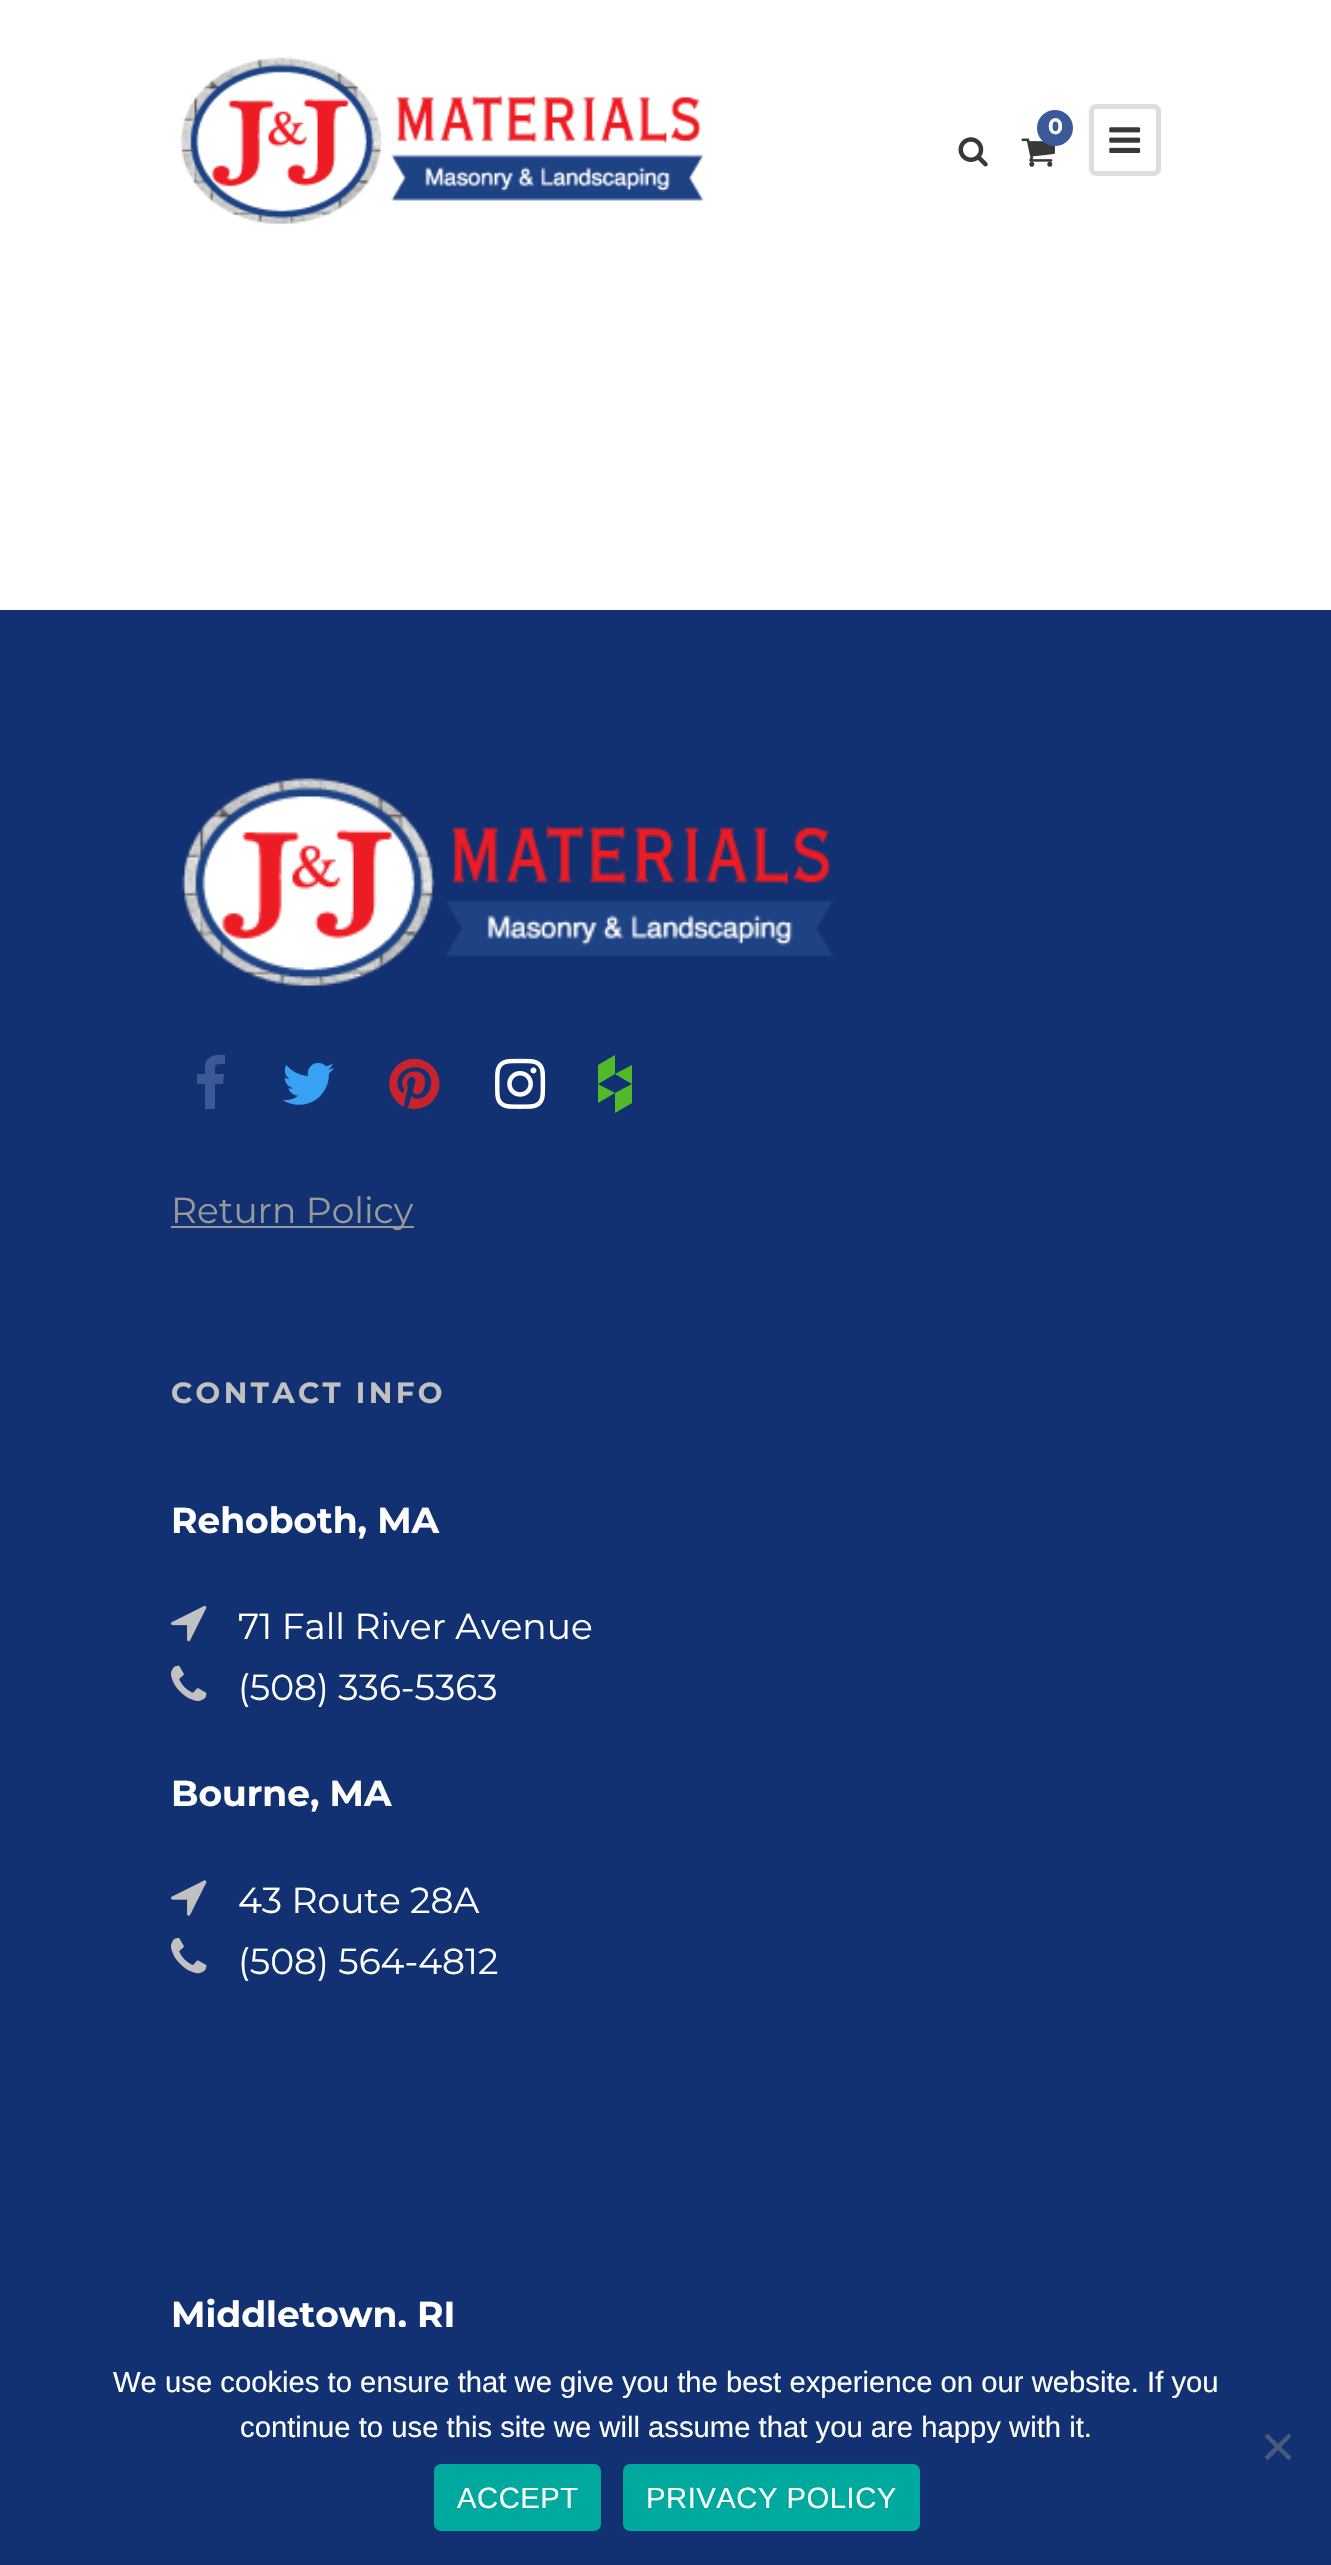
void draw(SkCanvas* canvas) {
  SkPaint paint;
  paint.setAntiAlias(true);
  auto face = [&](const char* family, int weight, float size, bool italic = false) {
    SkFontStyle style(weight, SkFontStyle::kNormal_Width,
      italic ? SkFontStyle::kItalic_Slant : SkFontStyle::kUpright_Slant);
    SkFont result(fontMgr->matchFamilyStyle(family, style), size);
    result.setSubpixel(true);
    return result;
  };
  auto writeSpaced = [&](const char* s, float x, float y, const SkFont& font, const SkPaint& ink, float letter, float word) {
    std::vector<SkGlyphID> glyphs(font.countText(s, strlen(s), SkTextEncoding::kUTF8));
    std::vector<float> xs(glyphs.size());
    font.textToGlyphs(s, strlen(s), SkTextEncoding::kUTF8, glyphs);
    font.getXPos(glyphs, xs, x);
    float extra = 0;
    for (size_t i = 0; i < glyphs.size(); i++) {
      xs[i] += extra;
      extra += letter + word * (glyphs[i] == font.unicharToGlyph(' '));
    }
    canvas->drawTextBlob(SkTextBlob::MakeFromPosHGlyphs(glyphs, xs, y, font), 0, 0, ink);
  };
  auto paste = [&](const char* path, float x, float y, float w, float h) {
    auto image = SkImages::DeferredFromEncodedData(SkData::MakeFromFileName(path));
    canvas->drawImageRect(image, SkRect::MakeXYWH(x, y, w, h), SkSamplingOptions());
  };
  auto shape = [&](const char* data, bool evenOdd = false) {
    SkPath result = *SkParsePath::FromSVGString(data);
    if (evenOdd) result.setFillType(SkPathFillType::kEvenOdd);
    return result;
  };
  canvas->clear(0xffffffff);
  paste("img/1.png", 180, 57, 523, 168);
  paste("img/2.png", 1021, 138, 34, 29);
  paint.setColor(0xff3c5a99);
  canvas->drawCircle(1055, 128, 18, paint);
  paint.setStroke(true);
  paint.setStrokeWidth(5);
  paint.setColor(0xffdddddd);
  canvas->drawRoundRect(SkRect::MakeXYWH(1091.5f, 106.5f, 67, 67), 4.5f, 4.5f, paint);
  paste("img/3.png", 1109, 127, 32, 26);
  paste("img/4.png", 958, 137, 30, 30);
  paint.setStroke(false);
  paint.setColor(0xff123172);
  canvas->drawRect(SkRect::MakeXYWH(0, 610, 1331, 1717), paint);
  paste("img/5.png", 181, 778, 652, 209);
  paint.setColor(0xff3b5998);
  canvas->drawPath(shape("M225 1055V1064C214 1064 215 1064 215 1074H224L223 1084H215V1109H205V1084H197V1074H205V1065C207 1055 217 1054 225 1055Z"), paint);
  paste("img/6.png", 282, 1063, 52, 42);
  paste("img/7.png", 389, 1058, 51, 51);
  paste("img/8.png", 495, 1058, 51, 51);
  paint.setColor(0xff52ba29);
  canvas->drawPath(shape("M615 1093L632 1084V1103L615 1113ZM598 1084V1103L615 1093ZM615 1055V1074L598 1084V1065ZM615 1074L632 1065V1084Z"), paint);
  paint.setColor(0xff999999);
  canvas->drawRect(SkRect::MakeXYWH(171, 1226, 243, 2), paint);
  paste("img/9.png", 171, 1605, 36, 37);
  paste("img/10.png", 171, 1665, 36, 36);
  paste("img/11.png", 171, 1880, 36, 36);
  paste("img/12.png", 171, 1937, 36, 37);
  auto f0 = face("Montserrat", 700, 22);
  paint.setColor(0xffffffff);
  canvas->drawString("0", 1048, 134, f0, paint);
  auto f1 = face("Montserrat", 400, 36);
  paint.setColor(0xff999999);
  canvas->drawString("Return Policy", 171, 1223, f1, paint);
  auto f2 = face("Montserrat", 700, 29.25f);
  paint.setColor(0xffc1c1c1);
  writeSpaced("CONTACT INFO", 171, 1403, f2, paint, 3.4f, 0);
  auto f3 = face("Montserrat", 700, 36);
  paint.setColor(0xffffffff);
  canvas->drawString("Rehoboth, MA", 171, 1533, f3, paint);
  canvas->drawString("71 Fall River Avenue", 238, 1639, f1, paint);
  canvas->drawString("(508) 336-5363", 238, 1700, f1, paint);
  canvas->drawString("Bourne, MA", 171, 1806, f3, paint);
  canvas->drawString("43 Route 28A", 238, 1913, f1, paint);
  canvas->drawString("(508) 564-4812", 238, 1974, f1, paint);
  canvas->drawString("Middletown, RI", 171, 2327, f3, paint);
  paint.setColor(0xff123172);
  canvas->drawRect(SkRect::MakeXYWH(0, 2327, 1331, 238), paint);
  auto f4 = face("Liberation Sans", 400, 29.25f);
  paint.setColor(0xffffffff);
  canvas->drawString("We use cookies to ensure that we give you the best experience on our website. If you", 113, 2392, f4, paint);
  canvas->drawString("continue to use this site we will assume that you are happy with it.", 240, 2437, f4, paint);
  paint.setColor(0xff495979);
  canvas->drawPath(shape("M1288.5 2433.5L1291.5 2436.5L1267.5 2460.5L1264.5 2457Z"), paint);
  canvas->drawPath(shape("M1264.5 2436.5L1267.5 2433.5L1291.5 2457L1288.5 2460.5Z"), paint);
  paint.setColor(0xff00a99d);
  canvas->drawRoundRect(SkRect::MakeXYWH(434, 2464, 167, 67), 7, 7, paint);
  paint.setColor(0xffffffff);
  writeSpaced("ACCEPT", 457, 2508, f4, paint, 0.5f, 0);
  paint.setColor(0xff00a99d);
  canvas->drawRoundRect(SkRect::MakeXYWH(623, 2464, 297, 67), 7, 7, paint);
  paint.setColor(0xffffffff);
  writeSpaced("PRIVACY POLICY", 646, 2508, f4, paint, 0.5f, 0);
}
